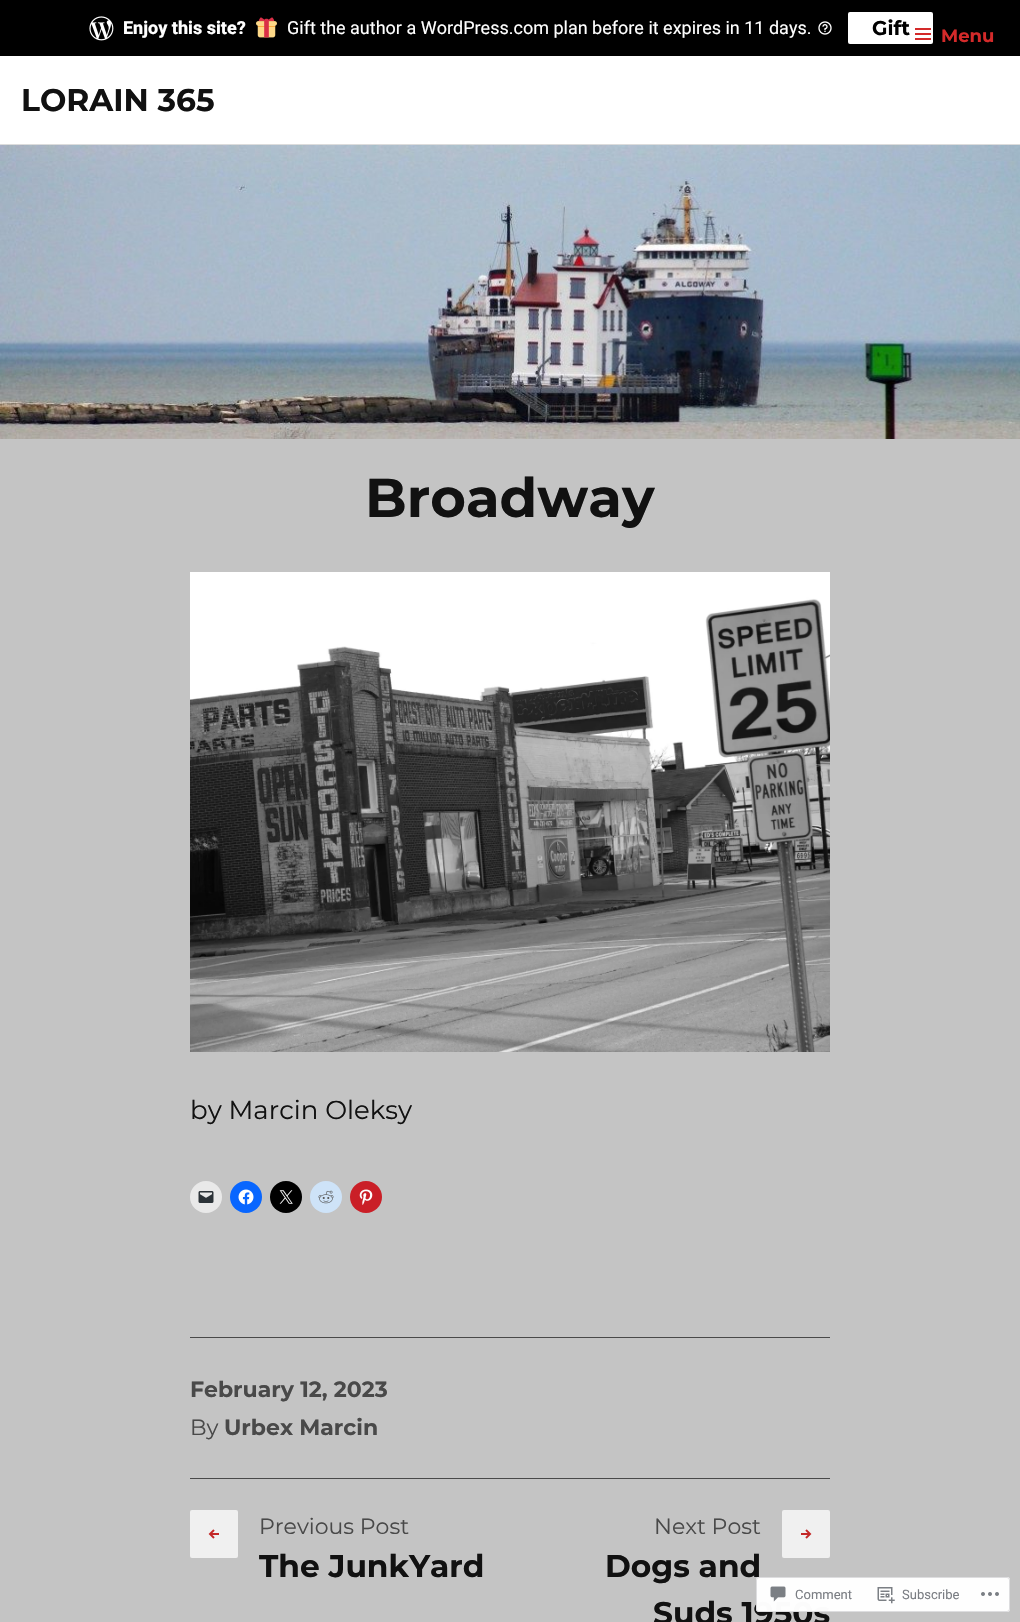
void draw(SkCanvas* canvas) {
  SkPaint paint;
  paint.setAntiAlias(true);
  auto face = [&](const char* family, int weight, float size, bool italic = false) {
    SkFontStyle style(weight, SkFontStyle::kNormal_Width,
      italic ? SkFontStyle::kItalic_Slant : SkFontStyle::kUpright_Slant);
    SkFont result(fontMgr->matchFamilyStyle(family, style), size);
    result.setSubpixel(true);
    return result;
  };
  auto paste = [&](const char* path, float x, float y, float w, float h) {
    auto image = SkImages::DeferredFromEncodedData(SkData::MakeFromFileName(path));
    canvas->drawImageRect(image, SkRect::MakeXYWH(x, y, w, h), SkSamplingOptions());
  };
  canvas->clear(0xffc4c4c4);
  paint.setColor(0xff000000);
  canvas->drawRect(SkRect::MakeXYWH(0, 0, 1020, 56), paint);
  paste("img/1.png", 89, 16, 25, 25);
  paste("img/2.png", 256, 17, 21, 21);
  paste("img/3.png", 818, 21, 14, 14);
  paint.setColor(0xffffffff);
  canvas->drawRoundRect(SkRect::MakeXYWH(848, 12, 85, 32), 2, 2, paint);
  canvas->drawRect(SkRect::MakeXYWH(0, 56, 1020, 88), paint);
  paint.setColor(0xffdcdcdc);
  canvas->drawRect(SkRect::MakeXYWH(0, 144, 1020, 1), paint);
  paste("img/4.png", 915, 28, 16, 12);
  paste("img/5.png", 0, 145, 1020, 294);
  paste("img/6.png", 190, 572, 640, 480);
  paint.setColor(0xffe9e9e9);
  canvas->drawCircle(206, 1197, 16, paint);
  paste("img/7.png", 198, 1191, 16, 12);
  paint.setColor(0xff0866ff);
  canvas->drawCircle(246, 1197, 16, paint);
  paste("img/8.png", 238, 1189, 16, 16);
  paint.setColor(0xff000000);
  canvas->drawCircle(286, 1197, 16, paint);
  paste("img/9.png", 279, 1190, 14, 14);
  paint.setColor(0xffcee3f8);
  canvas->drawCircle(326, 1197, 16, paint);
  paste("img/10.png", 318, 1190, 16, 14);
  paint.setColor(0xffca1f27);
  canvas->drawCircle(366, 1197, 16, paint);
  paste("img/11.png", 359, 1189, 14, 16);
  paint.setColor(0xff494949);
  canvas->drawRect(SkRect::MakeXYWH(190, 1337, 640, 1), paint);
  canvas->drawRect(SkRect::MakeXYWH(190, 1478, 640, 1), paint);
  paint.setColor(0xfff0f0f0);
  canvas->drawRoundRect(SkRect::MakeXYWH(190, 1510, 48, 48), 2, 2, paint);
  paste("img/12.png", 208, 1529, 11, 10);
  canvas->drawRoundRect(SkRect::MakeXYWH(782, 1510, 48, 48), 2, 2, paint);
  paste("img/13.png", 801, 1529, 11, 10);
  auto f0 = face("Roboto", 800, 18);
  paint.setColor(0xffffffff);
  canvas->drawString("Enjoy this site?", 123, 34, f0, paint);
  auto f1 = face("Roboto", 400, 18);
  canvas->drawString("Gift the author a WordPress.com plan before it expires in 11 days.", 287, 34, f1, paint);
  auto f2 = face("Montserrat", 700, 20);
  paint.setColor(0xff000000);
  canvas->drawString("Gift", 872, 35, f2, paint);
  auto f3 = face("Montserrat", 700, 18);
  paint.setColor(0xffd42a2a);
  canvas->drawString("Menu", 941, 42, f3, paint);
  auto f4 = face("Montserrat", 700, 31.25f);
  paint.setColor(0xff111111);
  canvas->drawString("LORAIN 365", 21, 111, f4, paint);
  auto f5 = face("Montserrat", 700, 54.5f);
  canvas->drawString("Broadway", 365, 517, f5, paint);
  auto f6 = face("Montserrat", 400, 26);
  canvas->drawString("by Marcin Oleksy", 190, 1119, f6, paint);
  auto f7 = face("Montserrat", 700, 22);
  paint.setColor(0xff494949);
  canvas->drawString("February 12, 2023", 190, 1397, f7, paint);
  auto f8 = face("Montserrat", 400, 22);
  canvas->drawString("By", 190, 1435, f8, paint);
  canvas->drawString("Urbex Marcin", 224, 1435, f7, paint);
  canvas->drawString("Previous Post", 259, 1534, f8, paint);
  paint.setColor(0xff111111);
  canvas->drawString("The JunkYard", 259, 1577, f4, paint);
  paint.setColor(0xff494949);
  canvas->drawString("Next Post", 654, 1534, f8, paint);
  paint.setColor(0xff111111);
  canvas->drawString("Dogs and", 605, 1577, f4, paint);
  canvas->drawString("Suds 1950s", 653, 1624, f4, paint);
  paint.setColor(0xfaffffff);
  canvas->drawRoundRect(SkRect::MakeXYWH(756, 1577, 254, 35), 3, 3, paint);
  paint.setStroke(true);
  paint.setStrokeWidth(1);
  paint.setColor(0xfadcdcde);
  canvas->drawRoundRect(SkRect::MakeXYWH(756.5f, 1577.5f, 253, 34), 2.5f, 2.5f, paint);
  paste("img/14.png", 770, 1586, 16, 16);
  auto f9 = face("Roboto", 400, 13);
  paint.setStroke(false);
  paint.setColor(0xff7a7d83);
  canvas->drawString("Comment", 795, 1599, f9, paint);
  paste("img/15.png", 877, 1587, 18, 17);
  canvas->drawString("Subscribe", 902, 1599, f9, paint);
  paste("img/16.png", 981, 1592, 18, 4);
}
